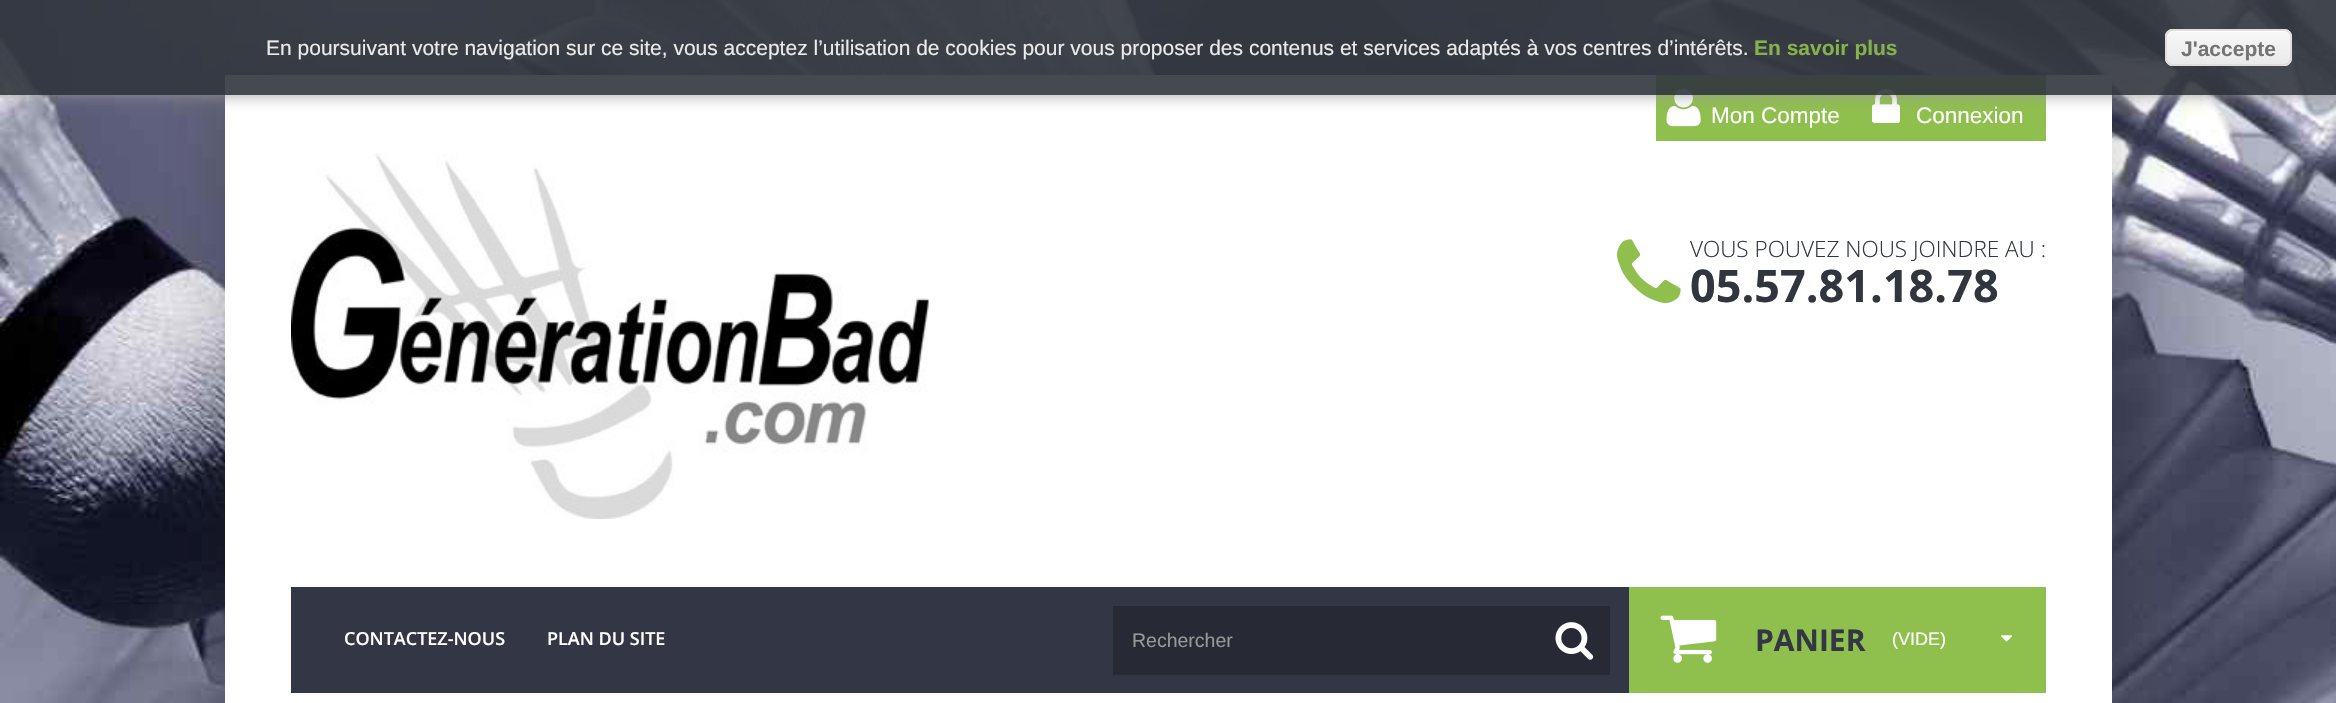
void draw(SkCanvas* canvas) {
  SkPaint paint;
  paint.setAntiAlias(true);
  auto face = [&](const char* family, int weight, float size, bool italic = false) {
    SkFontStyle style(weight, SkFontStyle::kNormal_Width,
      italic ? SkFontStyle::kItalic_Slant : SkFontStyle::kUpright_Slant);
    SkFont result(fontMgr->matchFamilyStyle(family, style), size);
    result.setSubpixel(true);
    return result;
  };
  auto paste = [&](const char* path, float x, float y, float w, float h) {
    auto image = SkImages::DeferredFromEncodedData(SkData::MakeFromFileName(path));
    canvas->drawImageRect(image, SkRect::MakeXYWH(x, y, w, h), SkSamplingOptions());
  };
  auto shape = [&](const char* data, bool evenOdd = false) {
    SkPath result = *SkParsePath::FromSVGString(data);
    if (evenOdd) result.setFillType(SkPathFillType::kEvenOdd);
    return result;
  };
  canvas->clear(0xffffffff);
  paste("img/1.png", 0, 0, 2336, 703);
  paint.setColor(0x33000000);
  paint.setMaskFilter(SkMaskFilter::MakeBlur(kNormal_SkBlurStyle, 30));
  canvas->drawRect(SkRect::MakeXYWH(225, 75, 1887, 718), paint);
  paint.setMaskFilter(nullptr);
  paint.setColor(0xffffffff);
  canvas->drawRect(SkRect::MakeXYWH(225, 75, 1887, 628), paint);
  paint.setColor(0xff8fbf4d);
  canvas->drawRect(SkRect::MakeXYWH(1656, 75, 390, 66), paint);
  paste("img/3.png", 1666, 88, 35, 39);
  paste("img/4.png", 1872, 88, 28, 35);
  canvas->save();
  canvas->clipPath(shape("M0 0H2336V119H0ZM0 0H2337V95H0Z", true), true);
  paint.setColor(0xe6969696);
  paint.setMaskFilter(SkMaskFilter::MakeBlur(kNormal_SkBlurStyle, 7.5f));
  canvas->drawRect(SkRect::MakeXYWH(0, 0, 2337, 95), paint);
  paint.setMaskFilter(nullptr);
  canvas->restore();
  paint.setColor(0xe631353d);
  canvas->drawRect(SkRect::MakeXYWH(0, 0, 2336, 95), paint);
  paint.setColor(0xe6f9f9f9);
  canvas->drawRoundRect(SkRect::MakeXYWH(2165, 29, 127, 37), 8, 8, paint);
  canvas->save();
  canvas->clipPath(shape("M2173 29H2284C2288.5 29 2292 32.5 2292 37V58C2292 62.5 2288.5 66 2284 66H2173C2168.5 66 2165 62.5 2165 58V37C2165 32.5 2168.5 29 2173 29Z"), true);
  {
    const SkColor colors[] = {0xe6f9f9f9, 0xe6e9e9e9};
    const float stops[] = {0.05f, 1};
    const SkPoint ends[] = {{2166, -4.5f}, {2166, 30}};
    paint.setShader(SkGradientShader::MakeLinear(ends, colors, stops, 2, SkTileMode::kClamp));
    paint.setAlpha(255);
  }
  canvas->drawRect(SkRect::MakeXYWH(2165, 29, 127, 1), paint);
  {
    const SkColor colors[] = {0xe6f9f9f9, 0xe6e9e9e9};
    const float stops[] = {0.05f, 1};
    const SkPoint ends[] = {{2166, 30}, {2166, 65}};
    paint.setShader(SkGradientShader::MakeLinear(ends, colors, stops, 2, SkTileMode::kClamp));
    paint.setAlpha(255);
  }
  canvas->drawRect(SkRect::MakeXYWH(2165, 30, 127, 35), paint);
  {
    const SkColor colors[] = {0xe6f9f9f9, 0xe6e9e9e9};
    const float stops[] = {0.05f, 1};
    const SkPoint ends[] = {{2166, 65}, {2166, 99}};
    paint.setShader(SkGradientShader::MakeLinear(ends, colors, stops, 2, SkTileMode::kClamp));
    paint.setAlpha(255);
  }
  canvas->drawRect(SkRect::MakeXYWH(2165, 65, 127, 1), paint);
  canvas->restore();
  paint.setShader(nullptr);
  paint.setColor(0xe6ffffff);
  canvas->drawPath(shape("M2172 32H2284C2288 32 2290 34 2290 38V60C2290 61 2290 62 2289 63C2290 62 2291 61 2291 59V36C2291 33 2288 30 2285 30H2172C2169 30 2166 33 2166 36V38C2166 34 2169 32 2172 32Z"), paint);
  paint.setStroke(true);
  paint.setStrokeWidth(2);
  paint.setColor(0xe6dcdcdc);
  canvas->drawRoundRect(SkRect::MakeXYWH(2166, 30, 125, 35), 7, 7, paint);
  paste("img/2.png", 291, 153, 638, 366);
  paste("img/5.png", 1617, 239, 64, 64);
  paint.setStroke(false);
  paint.setColor(0xff333745);
  canvas->drawRect(SkRect::MakeXYWH(291, 587, 1338, 106), paint);
  paint.setColor(0xff272a35);
  canvas->drawRect(SkRect::MakeXYWH(1113, 606, 497, 69), paint);
  paste("img/6.png", 1555, 622, 39, 38);
  paint.setColor(0xff8fbf4d);
  canvas->drawRect(SkRect::MakeXYWH(1629, 587, 417, 106), paint);
  paste("img/7.png", 1660, 615, 57, 48);
  paste("img/8.png", 2001, 635, 12, 7);
  auto f0 = face("Liberation Sans", 400, 21);
  paint.setColor(0xffebebec);
  canvas->drawString("En poursuivant votre navigation sur ce site, vous acceptez l’utilisation de cookies pour vous proposer des contenus et services adaptés à vos centres d’intérêts.", 266, 55, f0, paint);
  auto f1 = face("Liberation Sans", 700, 21);
  paint.setColor(0xff86b24c);
  canvas->drawString("En savoir plus", 1754, 55, f1, paint);
  paint.setColor(0xff747474);
  canvas->drawString("J'accepte", 2181, 56, f1, paint);
  auto f2 = face("Liberation Sans", 400, 22.5f);
  paint.setColor(0xffffffff);
  canvas->drawString("Mon Compte", 1711, 123, f2, paint);
  canvas->drawString("Connexion", 1916, 123, f2, paint);
  auto f3 = face("Open Sans", 300, 22.5f);
  paint.setColor(0xff31353d);
  canvas->drawString("VOUS POUVEZ NOUS JOINDRE AU :", 1690, 257, f3, paint);
  auto f4 = face("Open Sans", 700, 45);
  canvas->drawString("05.57.81.18.78", 1690, 302, f4, paint);
  auto f5 = face("Open Sans", 600, 18);
  paint.setColor(0xffffffff);
  canvas->drawString("CONTACTEZ-NOUS", 344, 645, f5, paint);
  canvas->drawString("PLAN DU SITE", 547, 645, f5, paint);
  auto f6 = face("Liberation Sans", 400, 19.5f);
  paint.setColor(0xff999999);
  canvas->drawString("Rechercher", 1132, 647, f6, paint);
  auto f7 = face("Open Sans", 700, 30);
  paint.setColor(0xff333745);
  canvas->drawString("PANIER", 1755, 651, f7, paint);
  auto f8 = face("Liberation Sans", 400, 18);
  paint.setColor(0xffffffff);
  canvas->drawString("(VIDE)", 1892, 645, f8, paint);
}
